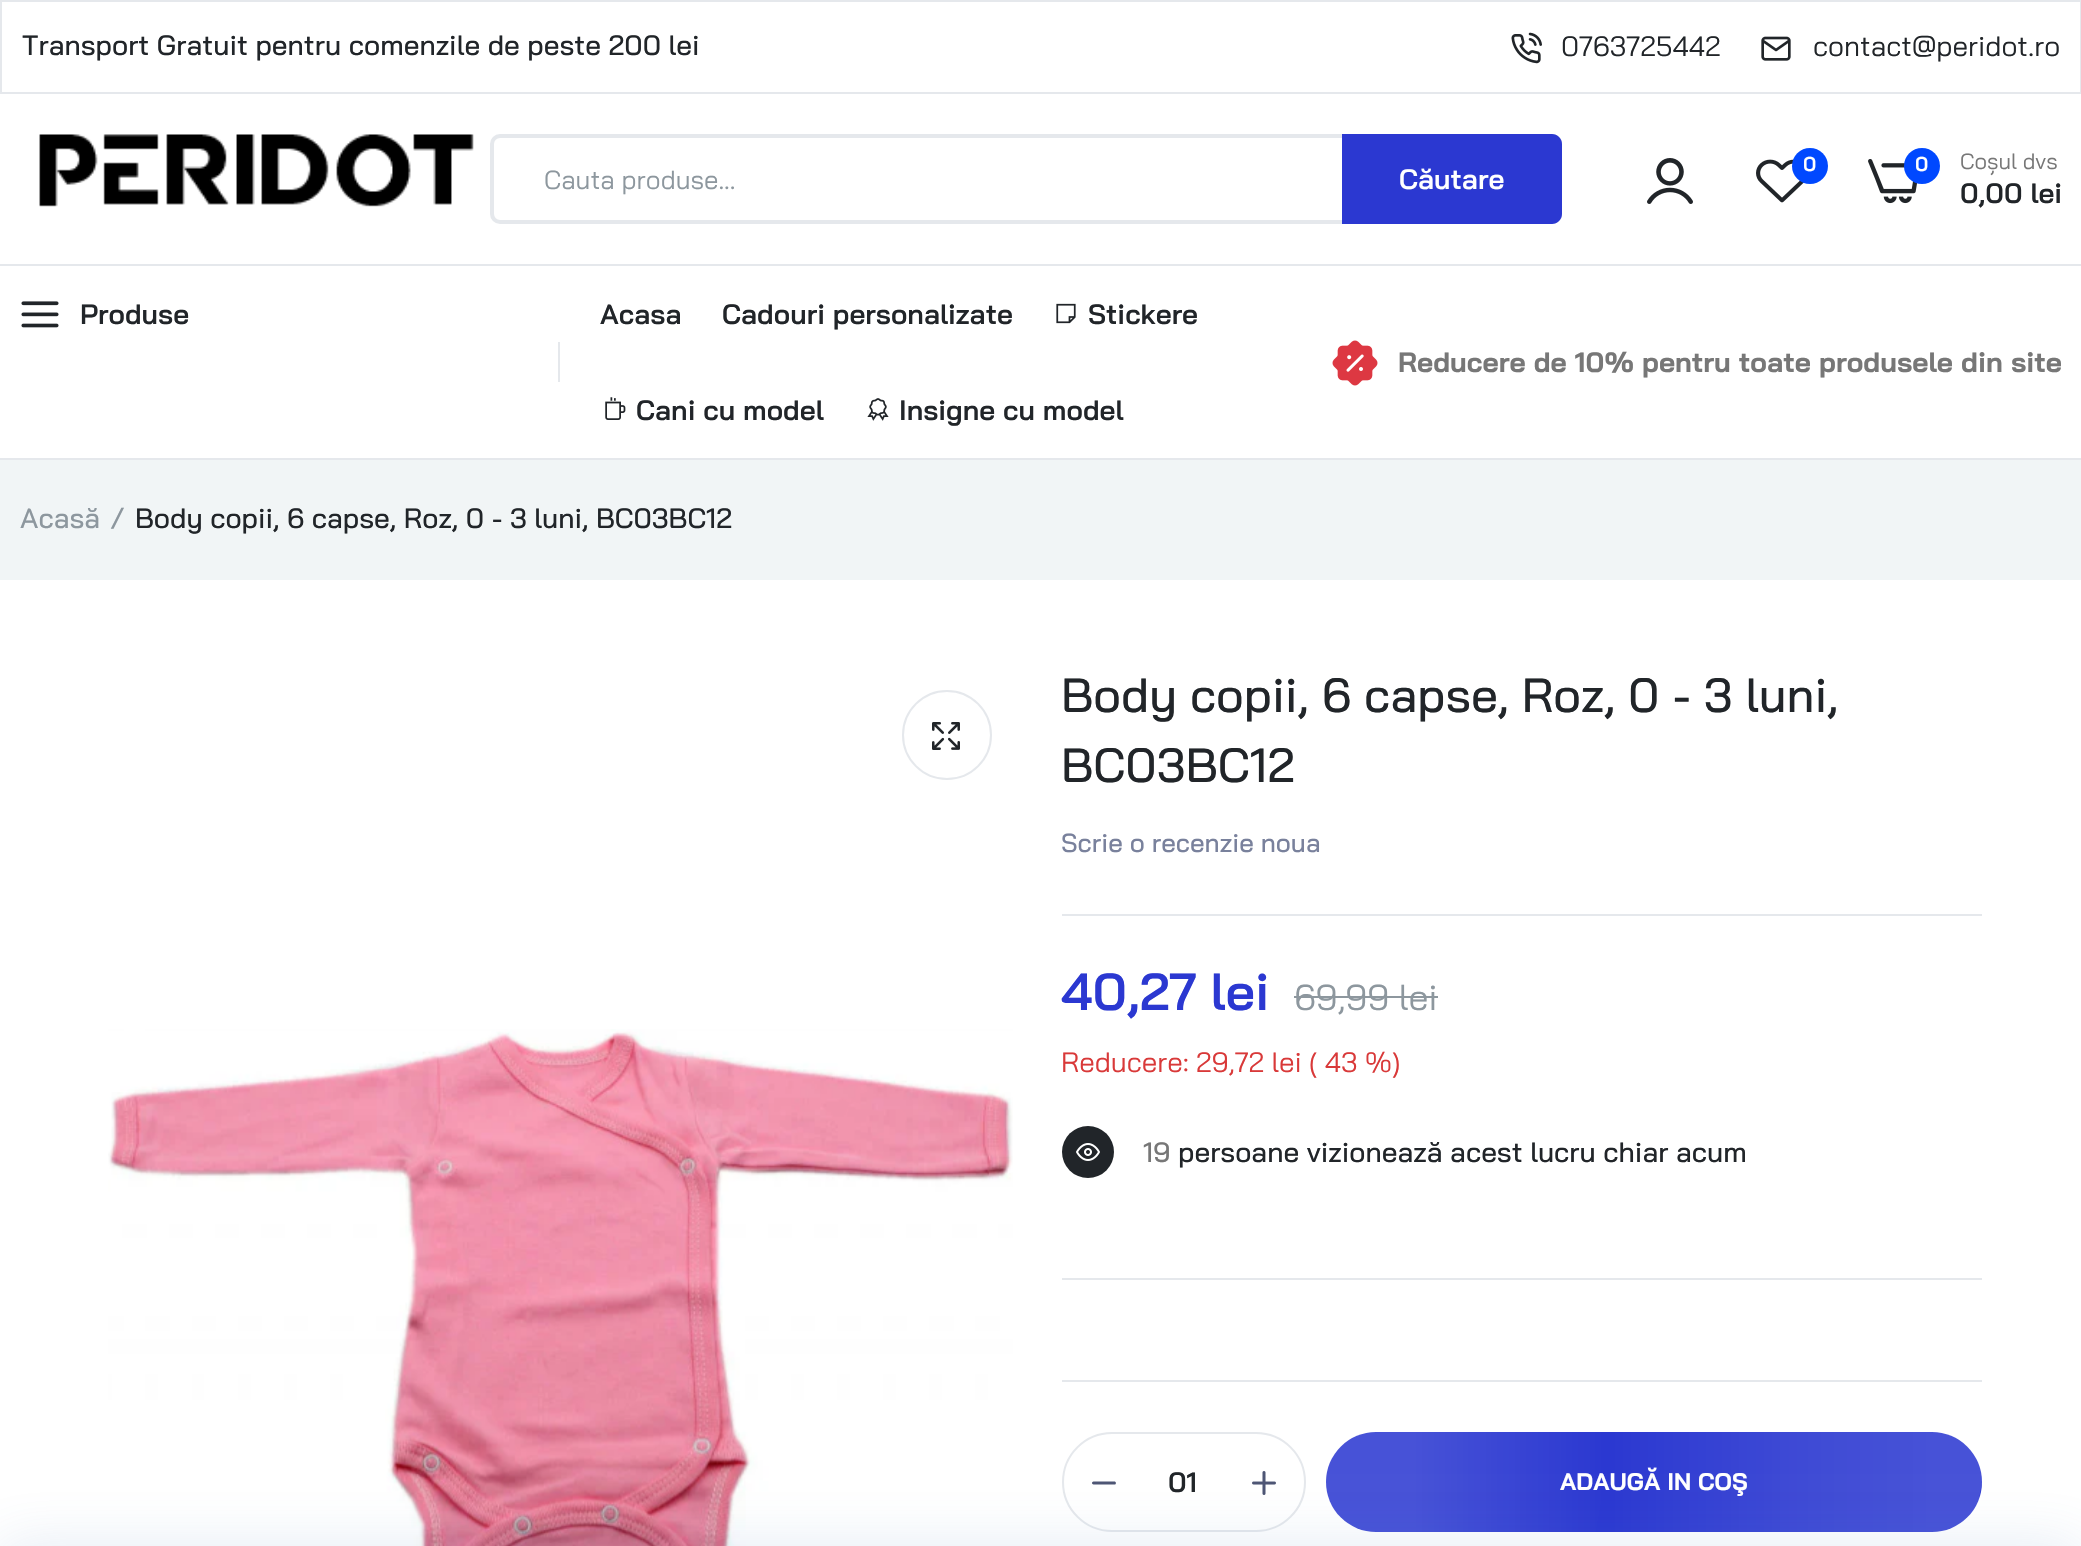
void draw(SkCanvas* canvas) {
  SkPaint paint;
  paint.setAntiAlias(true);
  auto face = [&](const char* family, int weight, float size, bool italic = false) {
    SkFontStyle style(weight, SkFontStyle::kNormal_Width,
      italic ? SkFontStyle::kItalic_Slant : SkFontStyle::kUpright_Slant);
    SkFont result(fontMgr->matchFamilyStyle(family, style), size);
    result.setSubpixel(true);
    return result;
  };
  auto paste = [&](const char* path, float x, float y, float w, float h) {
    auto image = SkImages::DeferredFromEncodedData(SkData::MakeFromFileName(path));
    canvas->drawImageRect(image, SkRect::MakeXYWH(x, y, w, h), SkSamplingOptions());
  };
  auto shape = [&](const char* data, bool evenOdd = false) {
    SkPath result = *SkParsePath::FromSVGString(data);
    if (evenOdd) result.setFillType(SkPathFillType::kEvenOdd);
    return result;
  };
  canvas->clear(0xffffffff);
  paint.setStroke(true);
  paint.setStrokeWidth(2);
  paint.setColor(0xffe5e8ec);
  canvas->drawRect(SkRect::MakeXYWH(1, 1, 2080, 92), paint);
  paste("img/1.png", 1511, 32, 31, 32);
  paste("img/2.png", 1761, 36, 30, 25);
  paste("img/3.png", 39, 134, 435, 73);
  paint.setStrokeWidth(4);
  canvas->drawRoundRect(SkRect::MakeXYWH(492, 136, 1068, 86), 8, 8, paint);
  paint.setStroke(false);
  paint.setColor(0xff2b38d1);
  canvas->drawPath(shape("M1342 134H1552C1557.5 134 1562 138.5 1562 144V214C1562 219.5 1557.5 224 1552 224H1342Z"), paint);
  paste("img/4.png", 1647, 158, 46, 46);
  paste("img/5.png", 1756, 159, 48, 44);
  paint.setColor(0xff0048ff);
  canvas->drawCircle(1810, 166, 18, paint);
  paste("img/6.png", 1868, 159, 50, 45);
  canvas->drawCircle(1922, 166, 18, paint);
  paint.setColor(0xffe5e8ec);
  canvas->drawRect(SkRect::MakeXYWH(0, 264, 2081, 2), paint);
  canvas->drawRect(SkRect::MakeXYWH(0, 458, 2081, 2), paint);
  paste("img/7.png", 21, 301, 38, 27);
  canvas->drawRect(SkRect::MakeXYWH(558, 342, 2, 40), paint);
  paste("img/8.png", 1056, 303, 20, 21);
  paste("img/9.png", 605, 397, 21, 23);
  paste("img/10.png", 867, 398, 22, 23);
  paste("img/11.png", 1332, 340, 46, 46);
  paint.setColor(0xfff1f5f6);
  canvas->drawRect(SkRect::MakeXYWH(0, 460, 2081, 120), paint);
  paint.setStroke(true);
  paint.setStrokeWidth(2);
  paint.setColor(0xffe5e8ec);
  canvas->drawCircle(947, 735, 44, paint);
  paste("img/12.png", 932, 722, 28, 28);
  paste("img/13.png", 108, 1029, 905, 517);
  paint.setStroke(false);
  canvas->drawRect(SkRect::MakeXYWH(1062, 914, 920, 2), paint);
  paint.setColor(0xff8d979e);
  canvas->drawRect(SkRect::MakeXYWH(1294, 996, 144, 2), paint);
  paint.setColor(0xff212529);
  canvas->drawCircle(1088, 1152, 26, paint);
  paste("img/14.png", 1076, 1143, 24, 18);
  paint.setColor(0xffe5e8ec);
  canvas->drawRect(SkRect::MakeXYWH(1062, 1278, 920, 2), paint);
  canvas->drawRect(SkRect::MakeXYWH(1062, 1380, 920, 2), paint);
  paint.setStroke(true);
  canvas->drawRoundRect(SkRect::MakeXYWH(1063, 1433, 242, 98), 49, 49, paint);
  paint.setStroke(false);
  paint.setColor(0xff4d5574);
  canvas->drawPath(shape("M1093.5 1484.5H1115C1116.5 1484 1116 1481.5 1114.5 1481.5H1093.5C1091.5 1481.5 1091.5 1484.5 1093.5 1484.5Z"), paint);
  paste("img/15.png", 1252, 1471, 24, 24);
  paint.setColor(0xff2b38d1);
  canvas->drawRoundRect(SkRect::MakeXYWH(1326, 1432, 656, 100), 50, 50, paint);
  {
    const SkColor colors[] = {0x00ffffff, 0x00ffffff, 0x17ffffff, 0x21ffffff, 0x21ffffff, 0x00ffffff};
    const float stops[] = {0, 0.01f, 0.3f, 0.5f, 0.71f, 1};
    const SkPoint ends[] = {{947, 1482}, {1604, 1482}};
    paint.setShader(SkGradientShader::MakeLinear(ends, colors, stops, 6, SkTileMode::kClamp));
    paint.setAlpha(255);
  }
  canvas->drawPath(shape("M1334 1432H1613L1595 1532H1316Z"), paint);
  {
    const SkColor colors[] = {0x00ffffff, 0x00ffffff, 0x17ffffff, 0x21ffffff, 0x21ffffff, 0x00ffffff};
    const float stops[] = {0, 0.01f, 0.3f, 0.5f, 0.71f, 1};
    const SkPoint ends[] = {{1604, 1482}, {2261, 1482}};
    paint.setShader(SkGradientShader::MakeLinear(ends, colors, stops, 6, SkTileMode::kClamp));
    paint.setAlpha(255);
  }
  canvas->drawPath(shape("M1973 1532H1595L1613 1432H1991Z"), paint);
  paint.setShader(nullptr);
  paint.setColor(0x26487bb7);
  paint.setMaskFilter(SkMaskFilter::MakeBlur(kNormal_SkBlurStyle, 30));
  canvas->drawRect(SkRect::MakeXYWH(0, 1546, 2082, 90), paint);
  paint.setMaskFilter(nullptr);
  auto f0 = face("Bai Jamjuree", 500, 28);
  paint.setColor(0xff212529);
  canvas->drawString("Transport Gratuit pentru comenzile de peste 200 lei", 22, 55, f0, paint);
  auto f1 = face("Bai Jamjuree", 400, 28);
  canvas->drawString("0763725442", 1561, 56, f1, paint);
  canvas->drawString("contact@peridot.ro", 1813, 56, f1, paint);
  auto f2 = face("Bai Jamjuree", 400, 26);
  paint.setColor(0xff8d979e);
  canvas->drawString("Cauta produse...", 544, 189, f2, paint);
  auto f3 = face("Bai Jamjuree", 600, 28);
  paint.setColor(0xffffffff);
  canvas->drawString("Căutare", 1399, 189, f3, paint);
  auto f4 = face("Bai Jamjuree", 600, 20);
  canvas->drawString("0", 1803, 171, f4, paint);
  canvas->drawString("0", 1915, 171, f4, paint);
  auto f5 = face("Bai Jamjuree", 400, 22);
  paint.setColor(0xff777777);
  canvas->drawString("Coșul dvs", 1960, 169, f5, paint);
  paint.setColor(0xff212529);
  {
    const struct { const char* s; float x, y; } items[] = {
      {"0,00 lei", 1960, 203},
      {"Produse", 80, 324},
      {"Acasa", 600, 324},
      {"Cadouri personalizate", 722, 324},
      {"Stickere", 1088, 324},
      {"Cani cu model", 636, 420},
      {"Insigne cu model", 899, 420},
    };
    for (auto [s, x, y] : items) {
      canvas->drawString(s, x, y, f3, paint);
    }
  }
  auto f6 = face("Bai Jamjuree", 700, 28);
  paint.setColor(0xff777777);
  canvas->drawString("Reducere de 10% pentru toate produsele din site", 1398, 372, f6, paint);
  paint.setColor(0xff8d979e);
  canvas->drawString("Acasă", 20, 528, f0, paint);
  canvas->drawString("/", 110, 528, f0, paint);
  paint.setColor(0xff212529);
  canvas->drawString("Body copii, 6 capse, Roz, 0 - 3 luni, BC03BC12", 135, 528, f0, paint);
  auto f7 = face("Bai Jamjuree", 500, 48);
  canvas->drawString("Body copii, 6 capse, Roz, 0 - 3 luni,", 1061, 712, f7, paint);
  canvas->drawString("BC03BC12", 1061, 782, f7, paint);
  auto f8 = face("Bai Jamjuree", 500, 26);
  paint.setColor(0xff79819c);
  canvas->drawString("Scrie o recenzie noua", 1061, 852, f8, paint);
  auto f9 = face("Bai Jamjuree", 600, 52);
  paint.setColor(0xff2b38d1);
  canvas->drawString("40,27 lei", 1061, 1010, f9, paint);
  auto f10 = face("Bai Jamjuree", 400, 36);
  paint.setColor(0xff8d979e);
  canvas->drawString("69,99 lei", 1294, 1010, f10, paint);
  paint.setColor(0xffd93939);
  canvas->drawString("Reducere: 29,72 lei ( 43 %)", 1061, 1072, f1, paint);
  paint.setColor(0xff777777);
  canvas->drawString("19", 1143, 1162, f0, paint);
  paint.setColor(0xff212529);
  canvas->drawString("persoane vizionează acest lucru chiar acum", 1178, 1162, f0, paint);
  canvas->drawString("01", 1168, 1492, f3, paint);
  auto f11 = face("Bai Jamjuree", 700, 24);
  paint.setColor(0xffffffff);
  canvas->drawString("ADAUGĂ IN COŞ", 1560, 1490, f11, paint);
}
